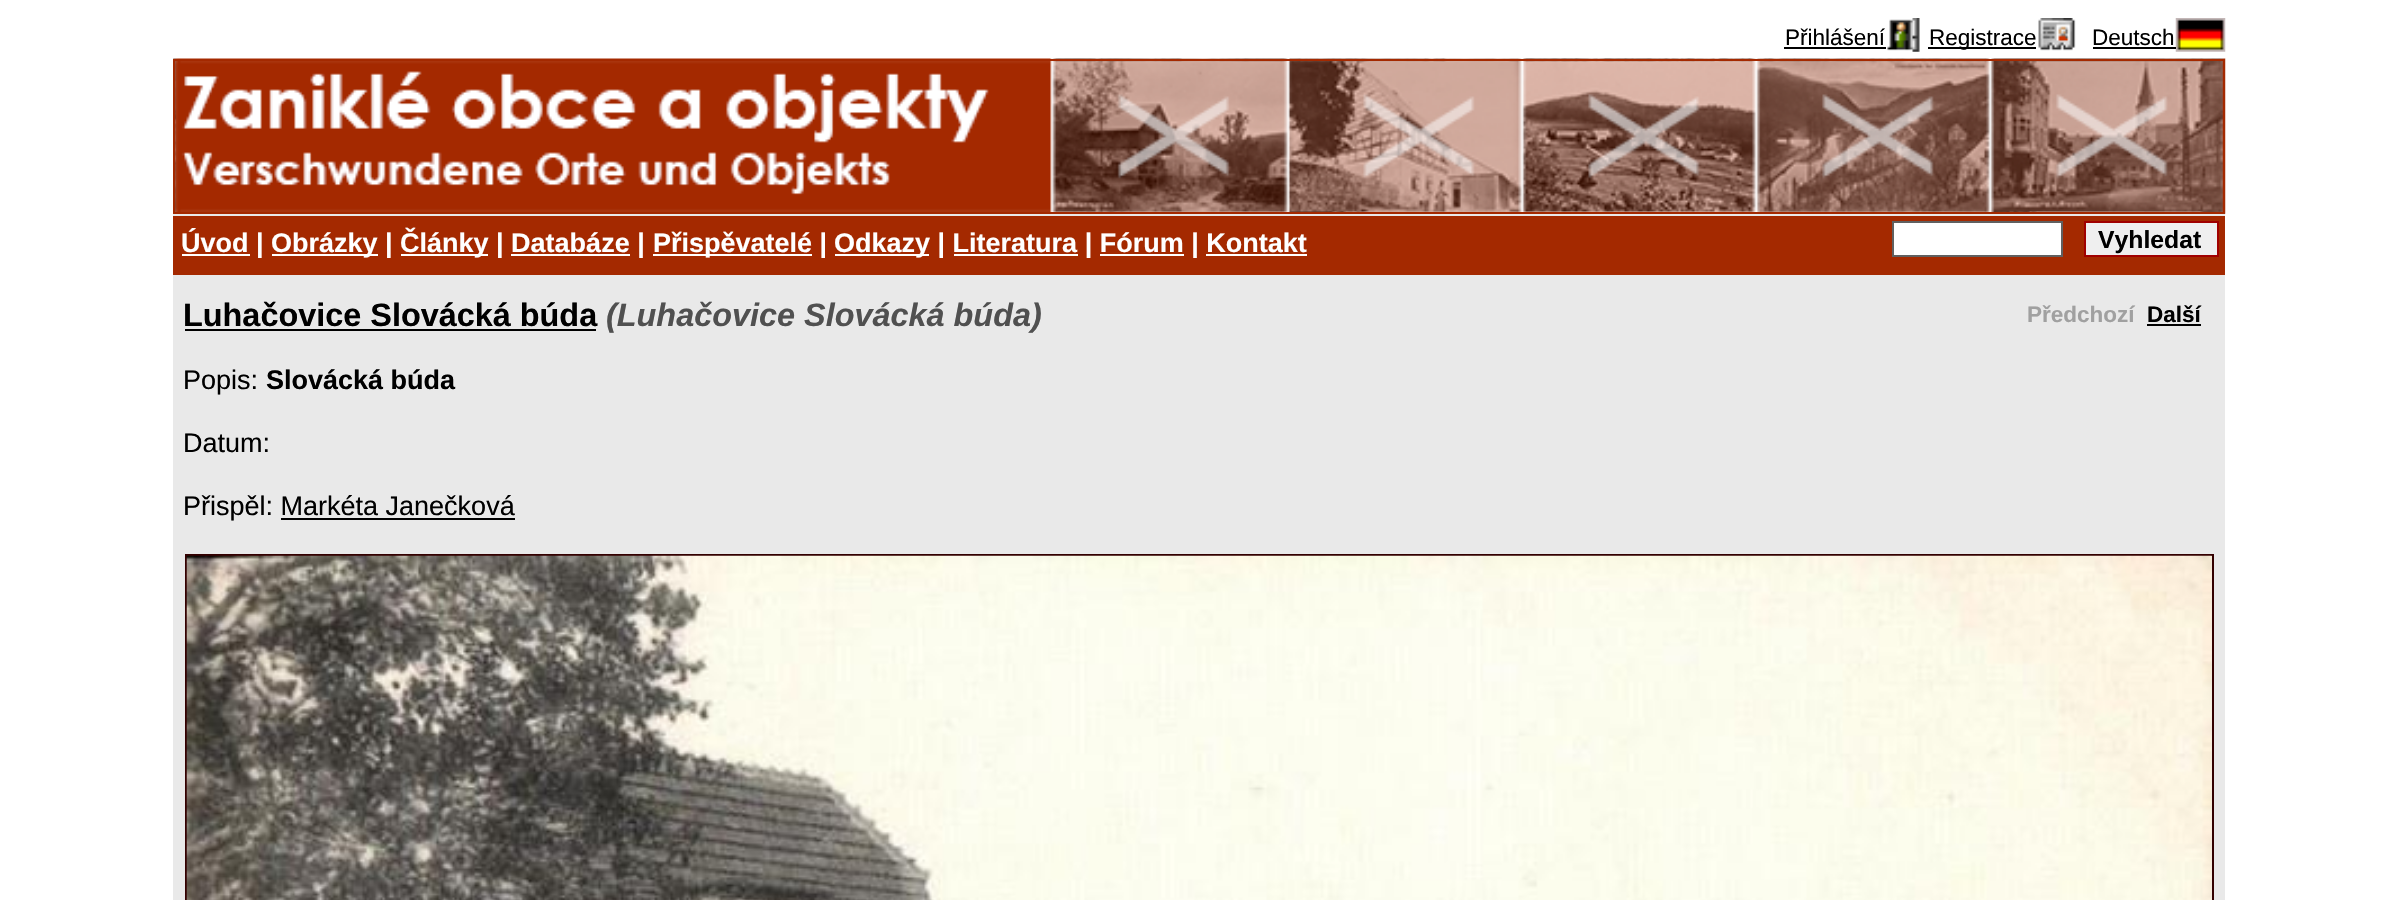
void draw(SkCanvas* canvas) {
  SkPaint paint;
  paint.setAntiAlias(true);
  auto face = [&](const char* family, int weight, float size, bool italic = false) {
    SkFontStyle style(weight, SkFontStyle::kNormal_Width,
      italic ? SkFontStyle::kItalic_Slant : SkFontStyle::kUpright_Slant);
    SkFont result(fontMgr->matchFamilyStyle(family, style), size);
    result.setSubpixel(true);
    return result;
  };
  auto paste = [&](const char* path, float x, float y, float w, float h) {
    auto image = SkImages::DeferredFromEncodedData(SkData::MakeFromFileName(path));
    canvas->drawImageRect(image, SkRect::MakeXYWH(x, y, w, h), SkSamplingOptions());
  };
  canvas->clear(0xffffffff);
  paint.setColor(0xffe9e9e9);
  canvas->drawRect(SkRect::MakeXYWH(173, 214, 2052, 686), paint);
  paint.setColor(0xff000000);
  canvas->drawRect(SkRect::MakeXYWH(1784, 47, 102, 2), paint);
  paste("img/1.png", 1887, 18, 33, 34);
  canvas->drawRect(SkRect::MakeXYWH(1928, 47, 108, 2), paint);
  paste("img/2.png", 2038, 18, 38, 33);
  paste("img/3.png", 2175, 18, 51, 34);
  canvas->drawRect(SkRect::MakeXYWH(2093, 47, 83, 2), paint);
  paste("img/4.png", 173, 58, 2053, 156);
  paint.setStroke(true);
  paint.setStrokeWidth(2);
  paint.setColor(0xffa42900);
  canvas->drawRect(SkRect::MakeXYWH(174, 60, 2050, 153), paint);
  paint.setStroke(false);
  {
    const struct { float x, y, w, h; SkColor color; } items[] = {
      {173, 216, 2052, 59, 0xffa42900},
      {182, 254, 68, 2, 0xffffffff},
      {272, 254, 106, 2, 0xffffffff},
      {401, 254, 87, 2, 0xffffffff},
      {653, 254, 159, 2, 0xffffffff},
      {835, 254, 94, 2, 0xffffffff},
      {511, 254, 119, 2, 0xffffffff},
      {954, 254, 124, 2, 0xffffffff},
      {1100, 254, 84, 2, 0xffffffff},
      {1206, 254, 101, 2, 0xffffffff},
    };
    for (auto [x, y, w, h, color] : items) {
      paint.setColor(color);
      canvas->drawRect(SkRect::MakeXYWH(x, y, w, h), paint);
    }
  }
  canvas->drawRect(SkRect::MakeXYWH(1893, 222, 169, 34), paint);
  paint.setStroke(true);
  paint.setColor(0xff606060);
  canvas->drawRect(SkRect::MakeXYWH(1893, 222, 169, 34), paint);
  paint.setStroke(false);
  paint.setColor(0xffefefef);
  canvas->drawRect(SkRect::MakeXYWH(2085, 222, 133, 34), paint);
  paint.setStroke(true);
  paint.setColor(0xffa00000);
  canvas->drawRect(SkRect::MakeXYWH(2085, 222, 133, 34), paint);
  paint.setStroke(false);
  {
    const struct { float x, y, w, h; SkColor color; } items[] = {
      {185, 329, 411, 2, 0xff000000},
      {2147, 324, 54, 2, 0xff000000},
      {281, 518, 234, 2, 0xff000000},
    };
    for (auto [x, y, w, h, color] : items) {
      paint.setColor(color);
      canvas->drawRect(SkRect::MakeXYWH(x, y, w, h), paint);
    }
  }
  paint.setStroke(true);
  paint.setColor(0xff330000);
  canvas->drawRect(SkRect::MakeXYWH(186, 555, 2027, 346), paint);
  paste("img/5.png", 186, 555, 2026, 345);
  auto f0 = face("Liberation Sans", 400, 22.5f);
  paint.setStroke(false);
  paint.setColor(0xff000000);
  {
    const struct { const char* s; float x, y; } items[] = {
      {"Přihlášení", 1785, 45},
      {"Registrace", 1929, 45},
      {"Deutsch", 2092, 45},
    };
    for (auto [s, x, y] : items) {
      canvas->drawString(s, x, y, f0, paint);
    }
  }
  auto f1 = face("Liberation Sans", 700, 27);
  paint.setColor(0xffffffff);
  {
    const struct { const char* s; float x, y; } items[] = {
      {"Úvod |", 181, 252},
      {"Obrázky |", 271, 252},
      {"Články | Databáze |", 400, 252},
      {"Přispěvatelé |", 653, 252},
      {"Odkazy | Literatura | Fórum | Kontakt", 834, 252},
    };
    for (auto [s, x, y] : items) {
      canvas->drawString(s, x, y, f1, paint);
    }
  }
  auto f2 = face("Liberation Sans", 700, 24.75f);
  paint.setColor(0xff000000);
  canvas->drawString("Vyhledat", 2098, 248, f2, paint);
  auto f3 = face("Liberation Sans", 700, 32.4f);
  canvas->drawString("Luhačovice Slovácká búda", 183, 326, f3, paint);
  auto f4 = face("Liberation Sans", 700, 32.4f, true);
  paint.setColor(0xff505050);
  canvas->drawString("(Luhačovice Slovácká búda)", 606, 326, f4, paint);
  auto f5 = face("Liberation Sans", 700, 22.5f);
  paint.setColor(0xffa0a0a0);
  canvas->drawString("Předchozí", 2027, 322, f5, paint);
  paint.setColor(0xff000000);
  canvas->drawString("Další", 2147, 322, f5, paint);
  auto f6 = face("Liberation Sans", 400, 27);
  canvas->drawString("Popis:", 183, 389, f6, paint);
  canvas->drawString("Slovácká búda", 266, 389, f1, paint);
  canvas->drawString("Datum:", 183, 452, f6, paint);
  canvas->drawString("Přispěl: Markéta Janečková", 183, 515, f6, paint);
}
